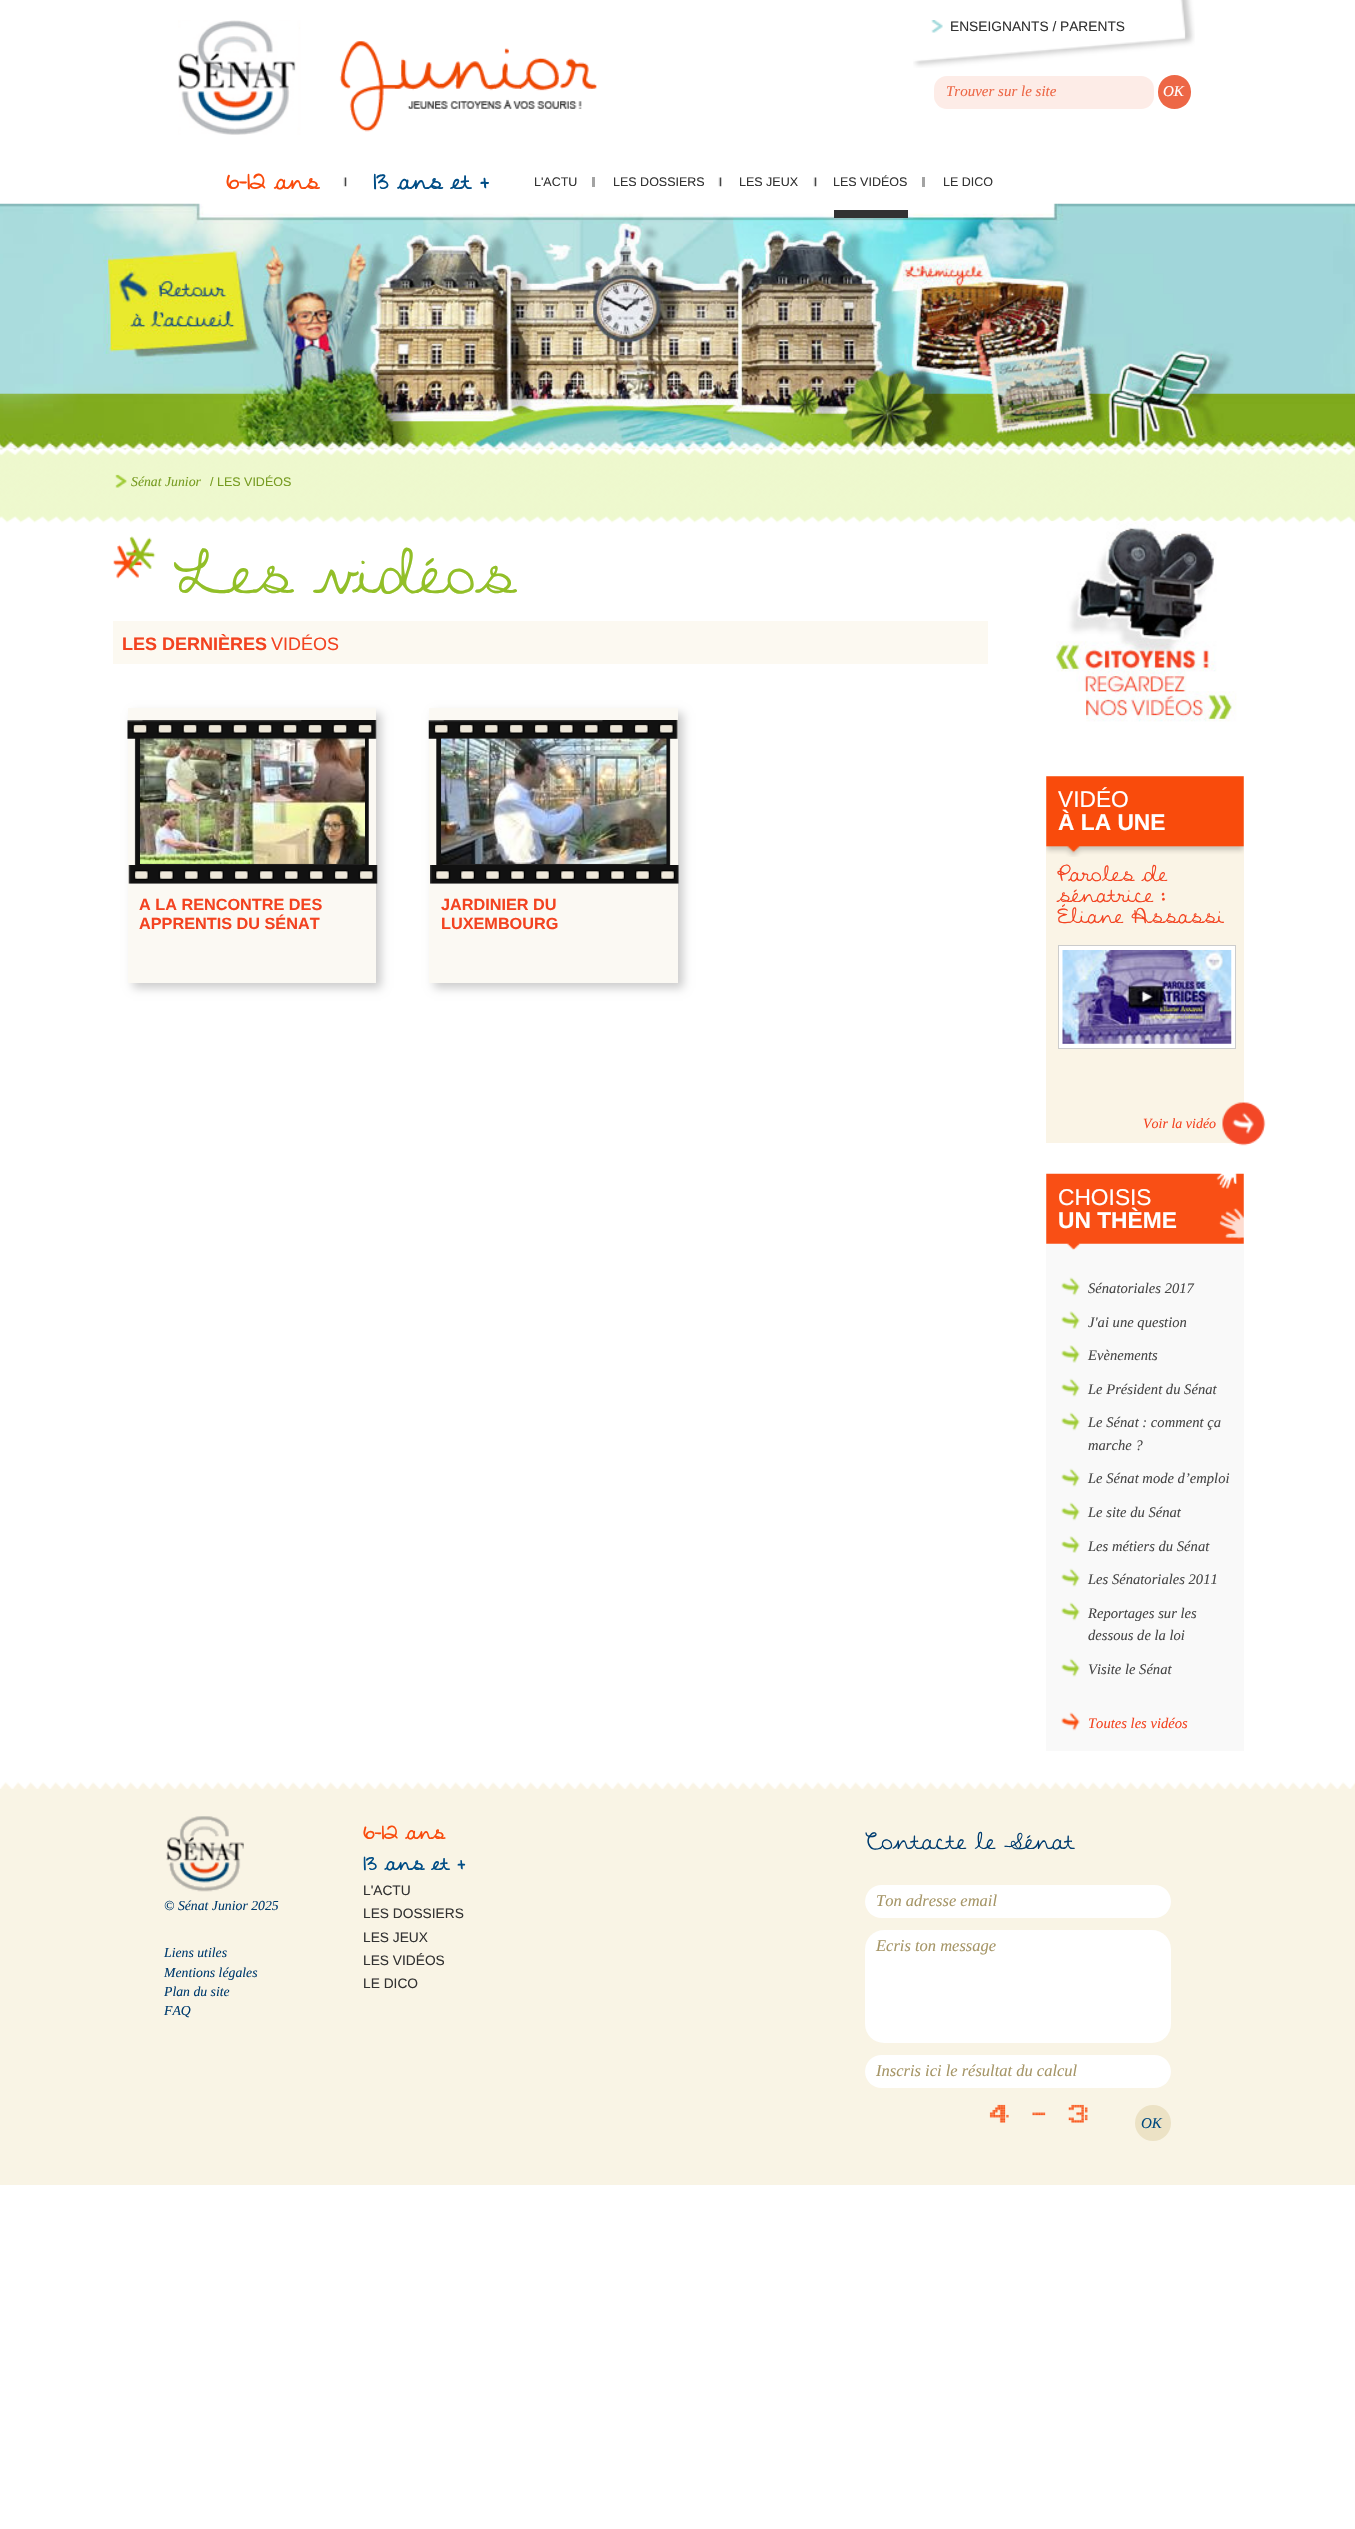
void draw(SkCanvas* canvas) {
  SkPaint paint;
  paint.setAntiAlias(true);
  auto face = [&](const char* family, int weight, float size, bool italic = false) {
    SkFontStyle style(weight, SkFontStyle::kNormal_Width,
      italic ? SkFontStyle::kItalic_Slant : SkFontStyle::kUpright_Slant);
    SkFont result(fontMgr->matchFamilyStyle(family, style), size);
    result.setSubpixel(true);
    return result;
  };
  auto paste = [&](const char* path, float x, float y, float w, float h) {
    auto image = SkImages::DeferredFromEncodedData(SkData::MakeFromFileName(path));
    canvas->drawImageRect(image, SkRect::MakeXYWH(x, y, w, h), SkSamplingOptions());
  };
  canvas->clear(0xffffffff);
  paste("img/1.png", 0, 448, 1355, 75);
  paste("img/2.png", 178, 20, 419, 115);
  paste("img/3.png", 913, 0, 282, 68);
  paste("img/4.png", 931, 20, 12, 13);
  paint.setColor(0xfffdece7);
  canvas->drawRoundRect(SkRect::MakeXYWH(934, 76, 220, 33), 13, 13, paint);
  paint.setColor(0xffed6746);
  canvas->drawRoundRect(SkRect::MakeXYWH(1158, 75, 33, 34), 16.5f, 16.5f, paint);
  paste("img/5.png", 343, 177, 4, 10);
  paint.setColor(0xffa3a3a3);
  canvas->drawRect(SkRect::MakeXYWH(592, 177, 3, 10), paint);
  paste("img/5.png", 718, 177, 4, 10);
  paste("img/5.png", 813, 177, 4, 10);
  canvas->drawRect(SkRect::MakeXYWH(922, 177, 3, 10), paint);
  paste("img/6.png", 0, 203, 1355, 246);
  paint.setColor(0xff323232);
  canvas->drawRect(SkRect::MakeXYWH(834, 210, 74, 8), paint);
  paste("img/7.png", 115, 474, 12, 14);
  paste("img/8.png", 113, 536, 43, 43);
  paint.setColor(0xfffcf9f1);
  canvas->drawRect(SkRect::MakeXYWH(113, 621, 875, 43), paint);
  paint.setColor(0xffcccccc);
  paint.setMaskFilter(SkMaskFilter::MakeBlur(kNormal_SkBlurStyle, 4.5f));
  canvas->drawRect(SkRect::MakeXYWH(133, 713, 248, 275), paint);
  paint.setMaskFilter(nullptr);
  paint.setColor(0xfffbf9f3);
  canvas->drawRect(SkRect::MakeXYWH(128, 708, 248, 275), paint);
  paste("img/9.png", 127, 720, 250, 145);
  paste("img/10.png", 128, 738, 250, 146);
  paste("img/11.png", 140, 738, 225, 126);
  paint.setColor(0xffcccccc);
  paint.setMaskFilter(SkMaskFilter::MakeBlur(kNormal_SkBlurStyle, 4.5f));
  canvas->drawRect(SkRect::MakeXYWH(434, 713, 249, 275), paint);
  paint.setMaskFilter(nullptr);
  paint.setColor(0xfffbf9f3);
  canvas->drawRect(SkRect::MakeXYWH(429, 708, 249, 275), paint);
  paste("img/12.png", 428, 720, 250, 145);
  paste("img/13.png", 430, 738, 249, 146);
  paste("img/14.png", 441, 738, 226, 126);
  paste("img/15.png", 1050, 521, 194, 201);
  paint.setColor(0xfffaf4e6);
  canvas->drawRect(SkRect::MakeXYWH(1046, 776, 198, 367), paint);
  paste("img/16.png", 1046, 776, 198, 81);
  paint.setColor(0xffffffff);
  canvas->drawRect(SkRect::MakeXYWH(1058.5f, 945.5f, 177, 103), paint);
  paint.setStroke(true);
  paint.setStrokeWidth(1);
  paint.setColor(0xffcccccc);
  canvas->drawRect(SkRect::MakeXYWH(1058.5f, 945.5f, 177, 103), paint);
  paste("img/17.png", 1062, 950, 170, 94);
  paste("img/18.png", 1222, 1102, 44, 44);
  paint.setStroke(false);
  paint.setColor(0xfff9f9f9);
  canvas->drawRect(SkRect::MakeXYWH(1046, 1174, 198, 577), paint);
  paste("img/19.png", 1046, 1173, 198, 77);
  paste("img/20.png", 1061, 1277, 19, 19);
  paste("img/21.png", 1061, 1311, 19, 18);
  paste("img/22.png", 1061, 1345, 19, 18);
  paste("img/23.png", 1061, 1378, 19, 19);
  paste("img/24.png", 1061, 1412, 19, 19);
  paste("img/23.png", 1061, 1468, 19, 19);
  paste("img/20.png", 1061, 1502, 19, 19);
  paste("img/25.png", 1061, 1536, 19, 17);
  paste("img/23.png", 1061, 1568, 19, 19);
  paste("img/24.png", 1061, 1602, 19, 19);
  paste("img/23.png", 1061, 1658, 19, 19);
  paste("img/26.png", 1061, 1712, 19, 19);
  paint.setColor(0xfff9f4e5);
  canvas->drawRect(SkRect::MakeXYWH(0, 1788, 1355, 397), paint);
  paste("img/27.png", 0, 1782, 1355, 7);
  paste("img/28.png", 166, 1816, 78, 76);
  paint.setColor(0xffffffff);
  canvas->drawRoundRect(SkRect::MakeXYWH(865, 1885, 306, 33), 16.5f, 16.5f, paint);
  canvas->drawRoundRect(SkRect::MakeXYWH(865, 1930, 306, 113), 19, 19, paint);
  canvas->drawRoundRect(SkRect::MakeXYWH(865, 2055, 306, 33), 16.5f, 16.5f, paint);
  paste("img/29.png", 989, 2104, 99, 19);
  paint.setColor(0xffece2c5);
  canvas->drawCircle(1153, 2123, 18, paint);
  auto f0 = face("Liberation Sans", 400, 13.75f);
  paint.setColor(0xff333333);
  canvas->drawString("ENSEIGNANTS / PARENTS", 950, 31, f0, paint);
  auto f1 = face("Liberation Serif", 400, 15, true);
  paint.setColor(0xffed6746);
  canvas->drawString("Trouver sur le site", 946, 96, f1, paint);
  paint.setColor(0xffffffff);
  canvas->drawString("OK", 1163, 96, f1, paint);
  auto f2 = face("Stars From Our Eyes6", 700, 18.75f);
  paint.setColor(0xfff94b0c);
  canvas->drawString("6-12 ans", 226, 189, f2, paint);
  paint.setColor(0xff004d86);
  canvas->drawString("13 ans et +", 373, 189, f2, paint);
  auto f3 = face("Liberation Sans", 400, 12.5f);
  paint.setColor(0xff333333);
  {
    const struct { const char* s; float x, y; } items[] = {
      {"L'ACTU", 534, 186},
      {"LES DOSSIERS", 613, 186},
      {"LES JEUX", 739, 186},
      {"LES VIDÉOS", 833, 186},
      {"LE DICO", 943, 186},
    };
    for (auto [s, x, y] : items) {
      canvas->drawString(s, x, y, f3, paint);
    }
  }
  auto f4 = face("Liberation Serif", 400, 13.75f, true);
  paint.setColor(0xff779c21);
  canvas->drawString("Sénat Junior", 131, 486, f4, paint);
  canvas->drawString("/ LES VIDÉOS", 210, 486, f3, paint);
  auto f5 = face("Stars From Our Eyes6", 400, 48.75f);
  paint.setColor(0xff92bf28);
  canvas->drawString("Les vidéos", 174, 593, f5, paint);
  auto f6 = face("Liberation Sans", 700, 18);
  paint.setColor(0xfff34320);
  canvas->drawString("LES DERNIÈRES", 122, 650, f6, paint);
  auto f7 = face("Liberation Sans", 400, 18);
  canvas->drawString("VIDÉOS", 271, 650, f7, paint);
  auto f8 = face("Liberation Sans", 700, 16.25f);
  {
    const struct { const char* s; float x, y; } items[] = {
      {"A LA RENCONTRE DES", 139, 910},
      {"APPRENTIS DU SÉNAT", 139, 929},
      {"JARDINIER DU", 441, 910},
      {"LUXEMBOURG", 441, 929},
    };
    for (auto [s, x, y] : items) {
      canvas->drawString(s, x, y, f8, paint);
    }
  }
  auto f9 = face("Liberation Sans", 400, 22.75f);
  paint.setColor(0xffffffff);
  canvas->drawString("VIDÉO", 1058, 807, f9, paint);
  auto f10 = face("Liberation Sans", 700, 22.75f);
  canvas->drawString("À LA UNE", 1058, 830, f10, paint);
  auto f11 = face("Stars From Our Eyes6", 400, 17.5f);
  paint.setColor(0xfff34320);
  {
    const struct { const char* s; float x, y; } items[] = {
      {"Paroles de", 1057, 881},
      {"sénatrice :", 1057, 902},
      {"Éliane Assassi", 1057, 923},
    };
    for (auto [s, x, y] : items) {
      canvas->drawString(s, x, y, f11, paint);
    }
  }
  auto f12 = face("Liberation Serif", 400, 14, true);
  canvas->drawString("Voir la vidéo", 1143, 1128, f12, paint);
  paint.setColor(0xffffffff);
  canvas->drawString("CHOISIS", 1058, 1205, f9, paint);
  canvas->drawString("UN THÈME", 1058, 1228, f10, paint);
  auto f13 = face("Liberation Serif", 400, 14.6f, true);
  paint.setColor(0xff474747);
  {
    const struct { const char* s; float x, y; } items[] = {
      {"Sénatoriales 2017", 1088, 1293},
      {"J'ai une question", 1088, 1327},
      {"Evènements", 1088, 1360},
      {"Le Président du Sénat", 1088, 1394},
      {"Le Sénat : comment ça", 1088, 1427},
      {"marche ?", 1088, 1450},
      {"Le Sénat mode d’emploi", 1088, 1483},
      {"Le site du Sénat", 1088, 1517},
      {"Les métiers du Sénat", 1088, 1551},
      {"Les Sénatoriales 2011", 1088, 1584},
      {"Reportages sur les", 1088, 1618},
      {"dessous de la loi", 1088, 1640},
      {"Visite le Sénat", 1088, 1674},
    };
    for (auto [s, x, y] : items) {
      canvas->drawString(s, x, y, f13, paint);
    }
  }
  paint.setColor(0xfff34320);
  canvas->drawString("Toutes les vidéos", 1088, 1728, f13, paint);
  paint.setColor(0xff003c6f);
  canvas->drawString("© Sénat Junior 2025", 164, 1910, f4, paint);
  auto f14 = face("Stars From Our Eyes6", 700, 16.5f);
  paint.setColor(0xfff94b0c);
  canvas->drawString("6-12 ans", 363, 1839, f14, paint);
  paint.setColor(0xff004d86);
  canvas->drawString("13 ans et +", 363, 1870, f14, paint);
  paint.setColor(0xff333333);
  {
    const struct { const char* s; float x, y; } items[] = {
      {"L'ACTU", 363, 1895},
      {"LES DOSSIERS", 363, 1918},
      {"LES JEUX", 363, 1942},
      {"LES VIDÉOS", 363, 1965},
      {"LE DICO", 363, 1988},
    };
    for (auto [s, x, y] : items) {
      canvas->drawString(s, x, y, f0, paint);
    }
  }
  auto f15 = face("Stars From Our Eyes6", 400, 19.25f);
  paint.setColor(0xff003c6f);
  canvas->drawString("Contacte le Sénat", 865, 1849, f15, paint);
  auto f16 = face("Liberation Serif", 400, 16.5f, true);
  paint.setColor(0xffa69667);
  {
    const struct { const char* s; float x, y; } items[] = {
      {"Ton adresse email", 876, 1906},
      {"Ecris ton message", 876, 1951},
      {"Inscris ici le résultat du calcul", 876, 2076},
    };
    for (auto [s, x, y] : items) {
      canvas->drawString(s, x, y, f16, paint);
    }
  }
  paint.setColor(0xff004a80);
  canvas->drawString("OK", 1141, 2128, f1, paint);
  paint.setColor(0xff003c6f);
  {
    const struct { const char* s; float x, y; } items[] = {
      {"Liens utiles", 164, 1957},
      {"Mentions légales", 164, 1977},
      {"Plan du site", 164, 1996},
      {"FAQ", 164, 2015},
    };
    for (auto [s, x, y] : items) {
      canvas->drawString(s, x, y, f4, paint);
    }
  }
}
